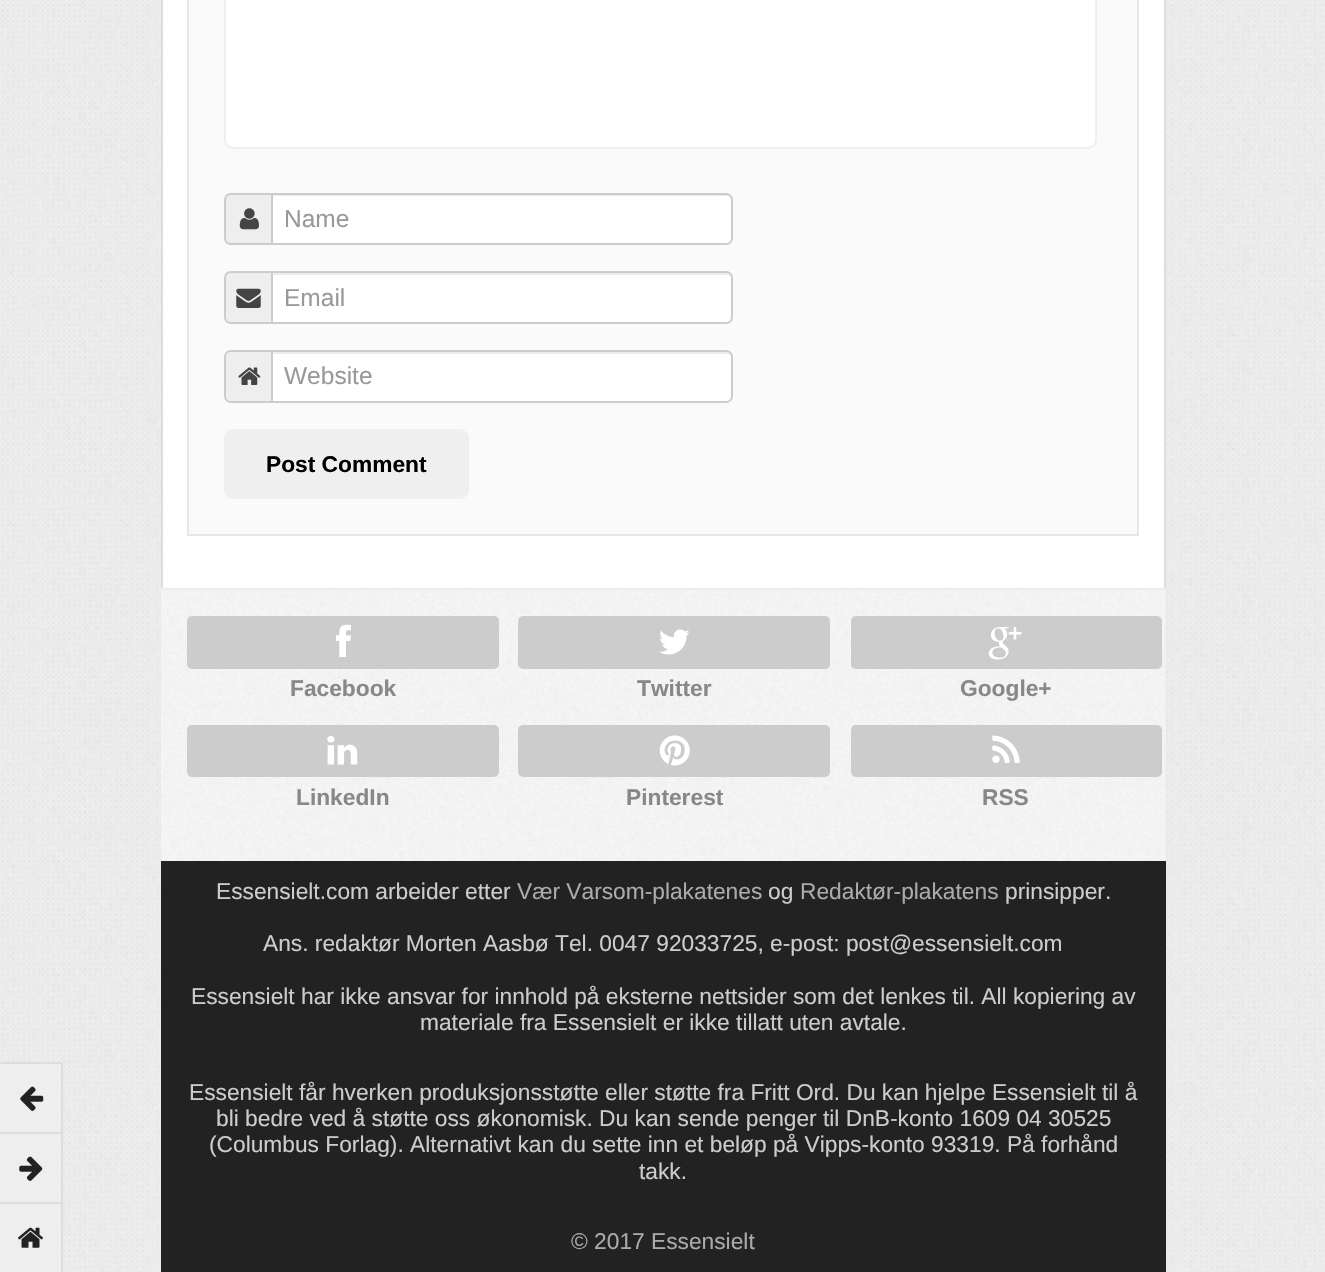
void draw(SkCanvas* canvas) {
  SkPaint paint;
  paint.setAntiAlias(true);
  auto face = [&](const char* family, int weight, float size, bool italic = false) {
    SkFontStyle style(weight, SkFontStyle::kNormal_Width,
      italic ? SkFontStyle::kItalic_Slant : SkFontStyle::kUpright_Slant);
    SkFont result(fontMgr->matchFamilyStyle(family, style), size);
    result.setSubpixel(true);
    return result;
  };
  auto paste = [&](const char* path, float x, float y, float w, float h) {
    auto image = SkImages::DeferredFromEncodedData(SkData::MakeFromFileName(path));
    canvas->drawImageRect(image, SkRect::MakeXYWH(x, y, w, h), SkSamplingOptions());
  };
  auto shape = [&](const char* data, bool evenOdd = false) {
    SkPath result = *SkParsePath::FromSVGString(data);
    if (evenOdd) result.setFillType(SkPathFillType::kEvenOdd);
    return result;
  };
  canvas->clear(0xffffffff);
  paste("img/1.png", 0, 0, 1325, 1272);
  {
    const struct { float x, y, w, h; SkColor color; } items[] = {
      {163, 0, 1001, 588, 0xffffffff},
      {1164, 0, 2, 588, 0xffdddddd},
      {161, 0, 2, 588, 0xffdddddd},
    };
    for (auto [x, y, w, h, color] : items) {
      paint.setColor(color);
      canvas->drawRect(SkRect::MakeXYWH(x, y, w, h), paint);
    }
  }
  paint.setColor(0xfffafafa);
  canvas->drawRect(SkRect::MakeXYWH(188, -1, 950, 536), paint);
  paint.setStroke(true);
  paint.setStrokeWidth(2);
  paint.setColor(0xffe7e7e7);
  canvas->drawRect(SkRect::MakeXYWH(188, -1, 950, 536), paint);
  paint.setStroke(false);
  paint.setColor(0xffffffff);
  canvas->drawRoundRect(SkRect::MakeXYWH(225, -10, 871, 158), 8, 8, paint);
  paint.setStroke(true);
  paint.setColor(0xffefefef);
  canvas->drawRoundRect(SkRect::MakeXYWH(225, -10, 871, 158), 8, 8, paint);
  paint.setStroke(false);
  paint.setColor(0xffeeeeee);
  canvas->drawPath(shape("M231 194H272V244H231C227.5 244 225 241.5 225 238V200C225 196.5 227.5 194 231 194Z"), paint);
  paint.setStroke(true);
  paint.setColor(0xffcccccc);
  canvas->drawPath(shape("M231 194H272V244H231C227.5 244 225 241.5 225 238V200C225 196.5 227.5 194 231 194Z"), paint);
  paste("img/2.png", 239, 208, 20, 22);
  paint.setStroke(false);
  paint.setColor(0xffffffff);
  canvas->drawPath(shape("M271 193H726C730 193 733 196 733 200V238C733 242 730 245 726 245H271Z"), paint);
  paint.setColor(0xffececec);
  canvas->drawPath(shape("M273 196H726C729 196 732 198 732 201C732 198 731 194 727 194H273Z"), paint);
  paint.setStroke(true);
  paint.setColor(0xffcccccc);
  canvas->drawPath(shape("M272 194H726C729.5 194 732 196.5 732 200V238C732 241.5 729.5 244 726 244H272Z"), paint);
  paint.setStroke(false);
  paint.setColor(0xffeeeeee);
  canvas->drawPath(shape("M231 272H272V323H231C227.5 323 225 320.5 225 317V278C225 274.5 227.5 272 231 272Z"), paint);
  paint.setStroke(true);
  paint.setColor(0xffcccccc);
  canvas->drawPath(shape("M231 272H272V323H231C227.5 323 225 320.5 225 317V278C225 274.5 227.5 272 231 272Z"), paint);
  paste("img/3.png", 236, 288, 25, 20);
  paint.setStroke(false);
  paint.setColor(0xffffffff);
  canvas->drawPath(shape("M271 271H726C730 271 733 274 733 278V317C733 321 730 324 726 324H271Z"), paint);
  paint.setColor(0xffececec);
  canvas->drawPath(shape("M273 275H726C729 275 732 277 732 280C732 277 731 273 727 273H273Z"), paint);
  paint.setStroke(true);
  paint.setColor(0xffcccccc);
  canvas->drawPath(shape("M272 272H726C729.5 272 732 274.5 732 278V317C732 320.5 729.5 323 726 323H272Z"), paint);
  paint.setStroke(false);
  paint.setColor(0xffeeeeee);
  canvas->drawPath(shape("M231 351H272V402H231C227.5 402 225 399.5 225 396V357C225 353.5 227.5 351 231 351Z"), paint);
  paint.setStroke(true);
  paint.setColor(0xffcccccc);
  canvas->drawPath(shape("M231 351H272V402H231C227.5 402 225 399.5 225 396V357C225 353.5 227.5 351 231 351Z"), paint);
  paste("img/4.png", 238, 367, 23, 18);
  paint.setStroke(false);
  paint.setColor(0xffffffff);
  canvas->drawPath(shape("M271 350H726C730 350 733 353 733 357V396C733 400 730 403 726 403H271Z"), paint);
  paint.setColor(0xffececec);
  canvas->drawPath(shape("M273 354H726C729 354 732 356 732 359C732 356 731 352 727 352H273Z"), paint);
  paint.setStroke(true);
  paint.setColor(0xffcccccc);
  canvas->drawPath(shape("M272 351H726C729.5 351 732 353.5 732 357V396C732 399.5 729.5 402 726 402H272Z"), paint);
  paint.setStroke(false);
  paint.setColor(0xffefefef);
  canvas->drawRoundRect(SkRect::MakeXYWH(225, 430, 243, 68), 8, 8, paint);
  paint.setStroke(true);
  canvas->drawRoundRect(SkRect::MakeXYWH(225, 430, 243, 68), 8, 8, paint);
  paint.setStroke(false);
  canvas->drawRect(SkRect::MakeXYWH(161, 590, 1005, 271), paint);
  paste("img/5.png", 161, 587, 1004, 274);
  paint.setColor(0xffededed);
  canvas->drawRect(SkRect::MakeXYWH(161, 588, 1005, 2), paint);
  paint.setColor(0xffcccccc);
  canvas->drawRoundRect(SkRect::MakeXYWH(187, 616, 312, 53), 5, 5, paint);
  paste("img/6.png", 336, 624, 15, 33);
  canvas->drawRoundRect(SkRect::MakeXYWH(518, 616, 312, 53), 5, 5, paint);
  paste("img/7.png", 659, 629, 31, 26);
  canvas->drawRoundRect(SkRect::MakeXYWH(851, 616, 311, 53), 5, 5, paint);
  paste("img/8.png", 988, 627, 34, 33);
  canvas->drawRoundRect(SkRect::MakeXYWH(187, 725, 312, 52), 5, 5, paint);
  paste("img/9.png", 327, 736, 31, 29);
  canvas->drawRoundRect(SkRect::MakeXYWH(518, 725, 312, 52), 5, 5, paint);
  paste("img/10.png", 659, 735, 31, 31);
  canvas->drawRoundRect(SkRect::MakeXYWH(851, 725, 311, 52), 5, 5, paint);
  paste("img/11.png", 992, 735, 28, 28);
  {
    const struct { float x, y, w, h; SkColor color; } items[] = {
      {0, 1064, 61, 68, 0xffeeeeee},
      {0, 1062, 63, 2, 0xffdddddd},
      {61, 1062, 2, 70, 0xffdddddd},
    };
    for (auto [x, y, w, h, color] : items) {
      paint.setColor(color);
      canvas->drawRect(SkRect::MakeXYWH(x, y, w, h), paint);
    }
  }
  paste("img/12.png", 20, 1086, 24, 25);
  {
    const struct { float x, y, w, h; SkColor color; } items[] = {
      {0, 1134, 61, 68, 0xffeeeeee},
      {0, 1132, 63, 2, 0xffdddddd},
      {61, 1132, 2, 70, 0xffdddddd},
    };
    for (auto [x, y, w, h, color] : items) {
      paint.setColor(color);
      canvas->drawRect(SkRect::MakeXYWH(x, y, w, h), paint);
    }
  }
  paste("img/13.png", 19, 1156, 24, 25);
  {
    const struct { float x, y, w, h; SkColor color; } items[] = {
      {0, 1204, 61, 68, 0xffeeeeee},
      {0, 1202, 63, 2, 0xffdddddd},
      {61, 1202, 2, 70, 0xffdddddd},
    };
    for (auto [x, y, w, h, color] : items) {
      paint.setColor(color);
      canvas->drawRect(SkRect::MakeXYWH(x, y, w, h), paint);
    }
  }
  paste("img/14.png", 18, 1227, 25, 21);
  paint.setColor(0xff222222);
  canvas->drawRect(SkRect::MakeXYWH(161, 861, 1005, 411), paint);
  auto f0 = face("Liberation Sans", 400, 24.5f);
  paint.setColor(0xff999999);
  {
    const struct { const char* s; float x, y; } items[] = {
      {"Name", 284, 227},
      {"Email", 284, 306},
      {"Website", 284, 384},
    };
    for (auto [s, x, y] : items) {
      canvas->drawString(s, x, y, f0, paint);
    }
  }
  auto f1 = face("Liberation Sans", 700, 22.75f);
  paint.setColor(0xff000000);
  canvas->drawString("Post Comment", 266, 472, f1, paint);
  paint.setColor(0xff888888);
  {
    const struct { const char* s; float x, y; } items[] = {
      {"Facebook", 290, 696},
      {"Twitter", 637, 696},
      {"Google+", 960, 696},
      {"LinkedIn", 296, 805},
      {"Pinterest", 626, 805},
      {"RSS", 982, 805},
    };
    for (auto [s, x, y] : items) {
      canvas->drawString(s, x, y, f1, paint);
    }
  }
  auto f2 = face("Liberation Sans", 400, 22.75f);
  paint.setColor(0xffcccccc);
  canvas->drawString("Essensielt.com arbeider etter", 216, 899, f2, paint);
  paint.setColor(0xffaaaaaa);
  canvas->drawString("Vær Varsom-plakatenes", 517, 899, f2, paint);
  paint.setColor(0xffcccccc);
  canvas->drawString("og", 768, 899, f2, paint);
  paint.setColor(0xffaaaaaa);
  canvas->drawString("Redaktør-plakatens", 800, 899, f2, paint);
  paint.setColor(0xffcccccc);
  {
    const struct { const char* s; float x, y; } items[] = {
      {"prinsipper.", 1005, 899},
      {"Ans. redaktør Morten Aasbø Tel. 0047 92033725, e-post: post@essensielt.com", 263, 951},
      {"Essensielt har ikke ansvar for innhold på eksterne nettsider som det lenkes til. All kopiering av", 191, 1004},
      {"materiale fra Essensielt er ikke tillatt uten avtale.", 420, 1030},
      {"Essensielt får hverken produksjonsstøtte eller støtte fra Fritt Ord. Du kan hjelpe Essensielt til å", 189, 1100},
      {"bli bedre ved å støtte oss økonomisk. Du kan sende penger til DnB-konto 1609 04 30525", 216, 1126},
      {"(Columbus Forlag). Alternativt kan du sette inn et beløp på Vipps-konto 93319. På forhånd", 209, 1152},
      {"takk.", 639, 1179},
    };
    for (auto [s, x, y] : items) {
      canvas->drawString(s, x, y, f2, paint);
    }
  }
  paint.setColor(0xffaaaaaa);
  canvas->drawString("© 2017 Essensielt", 571, 1249, f2, paint);
}
